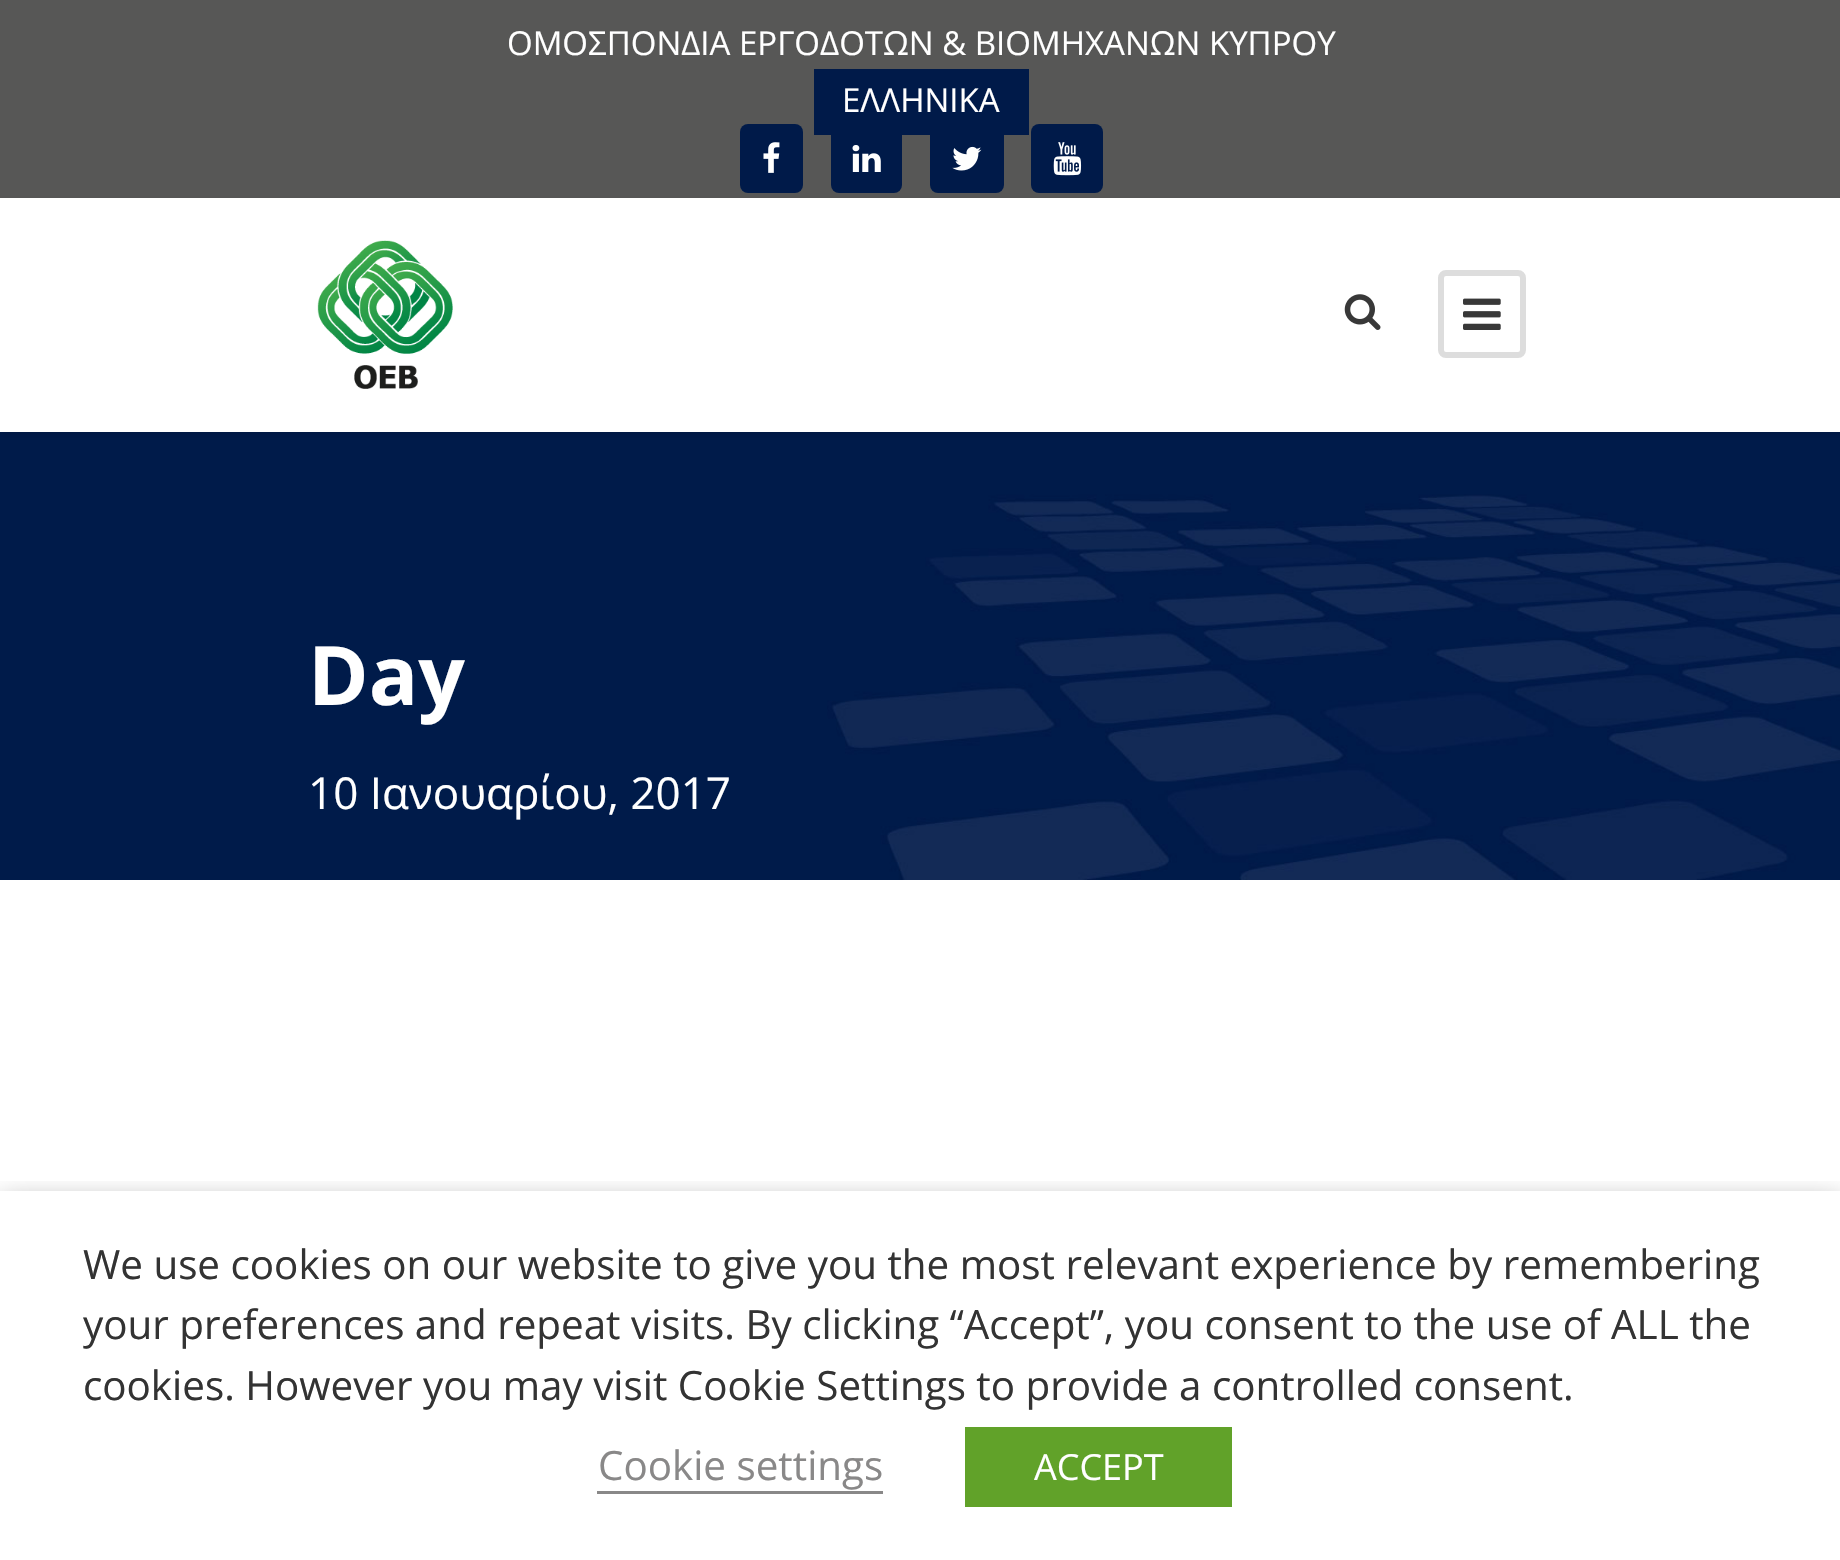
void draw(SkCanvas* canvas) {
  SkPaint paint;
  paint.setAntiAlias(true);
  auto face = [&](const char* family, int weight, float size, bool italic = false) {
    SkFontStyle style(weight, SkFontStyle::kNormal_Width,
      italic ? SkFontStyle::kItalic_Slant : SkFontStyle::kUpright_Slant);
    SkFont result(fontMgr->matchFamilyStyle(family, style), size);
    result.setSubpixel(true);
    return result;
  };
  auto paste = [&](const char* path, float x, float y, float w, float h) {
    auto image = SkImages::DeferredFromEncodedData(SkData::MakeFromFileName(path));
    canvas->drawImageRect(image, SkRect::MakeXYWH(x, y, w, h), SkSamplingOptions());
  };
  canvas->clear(0xffffffff);
  paint.setColor(0xff575756);
  canvas->drawRect(SkRect::MakeXYWH(0, 0, 1840, 198), paint);
  paint.setColor(0xff001a49);
  canvas->drawRect(SkRect::MakeXYWH(814, 69, 215, 66), paint);
  canvas->drawRoundRect(SkRect::MakeXYWH(740, 124, 63, 69), 8, 8, paint);
  paste("img/1.png", 763, 142, 17, 31);
  canvas->drawRoundRect(SkRect::MakeXYWH(831, 124, 71, 69), 8, 8, paint);
  paste("img/2.png", 852, 145, 29, 27);
  canvas->drawRoundRect(SkRect::MakeXYWH(930, 124, 74, 69), 8, 8, paint);
  paste("img/3.png", 952, 146, 30, 25);
  canvas->drawRoundRect(SkRect::MakeXYWH(1031, 124, 72, 69), 8, 8, paint);
  paste("img/4.png", 1053, 142, 29, 34);
  paste("img/8.png", 0, 432, 1840, 448);
  paint.setColor(0x1a000000);
  paint.setMaskFilter(SkMaskFilter::MakeBlur(kNormal_SkBlurStyle, 3));
  canvas->drawRect(SkRect::MakeXYWH(0, 201, 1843, 234), paint);
  paint.setMaskFilter(nullptr);
  paint.setColor(0xffffffff);
  canvas->drawRect(SkRect::MakeXYWH(0, 198, 1840, 234), paint);
  paste("img/5.png", 317, 240, 136, 149);
  paste("img/6.png", 1344, 294, 37, 36);
  paint.setStroke(true);
  paint.setStrokeWidth(6);
  paint.setColor(0xffdddddd);
  canvas->drawRoundRect(SkRect::MakeXYWH(1441, 273, 82, 82), 5, 5, paint);
  paste("img/7.png", 1463, 298, 38, 32);
  canvas->save();
  canvas->clipRect(SkRect::MakeXYWH(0, 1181, 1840, 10));
  paint.setStroke(false);
  paint.setColor(0x80000000);
  paint.setMaskFilter(SkMaskFilter::MakeBlur(kNormal_SkBlurStyle, 14));
  canvas->drawRect(SkRect::MakeXYWH(0, 1205, 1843, 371), paint);
  paint.setMaskFilter(nullptr);
  canvas->restore();
  paint.setColor(0xff898888);
  canvas->drawRect(SkRect::MakeXYWH(597, 1491, 286, 3), paint);
  paint.setColor(0xff61a229);
  canvas->drawRect(SkRect::MakeXYWH(965, 1427, 267, 80), paint);
  auto f0 = face("Open Sans", 400, 33);
  paint.setColor(0xffffffff);
  canvas->drawString("ΟΜΟΣΠΟΝΔΙΑ ΕΡΓΟΔΟΤΩΝ & ΒΙΟΜΗΧΑΝΩΝ ΚΥΠΡΟΥ", 507, 55, f0, paint);
  canvas->drawString("ΕΛΛΗΝΙΚΑ", 842, 112, f0, paint);
  auto f1 = face("Open Sans", 700, 82);
  canvas->drawString("Day", 308, 705, f1, paint);
  auto f2 = face("Open Sans", 400, 44);
  canvas->drawString("10 Ιανουαρίου, 2017", 308, 809, f2, paint);
  auto f3 = face("Open Sans", 400, 40.35f);
  paint.setColor(0xff333333);
  {
    const struct { const char* s; float x, y; } items[] = {
      {"We use cookies on our website to give you the most relevant experience by remembering", 83, 1279},
      {"your preferences and repeat visits. By clicking “Accept”, you consent to the use of ALL the", 83, 1339},
      {"cookies. However you may visit Cookie Settings to provide a controlled consent.", 83, 1400},
    };
    for (auto [s, x, y] : items) {
      canvas->drawString(s, x, y, f3, paint);
    }
  }
  paint.setColor(0xff898888);
  canvas->drawString("Cookie settings", 598, 1480, f3, paint);
  auto f4 = face("Open Sans", 400, 36);
  paint.setColor(0xffffffff);
  canvas->drawString("ACCEPT", 1034, 1480, f4, paint);
}
